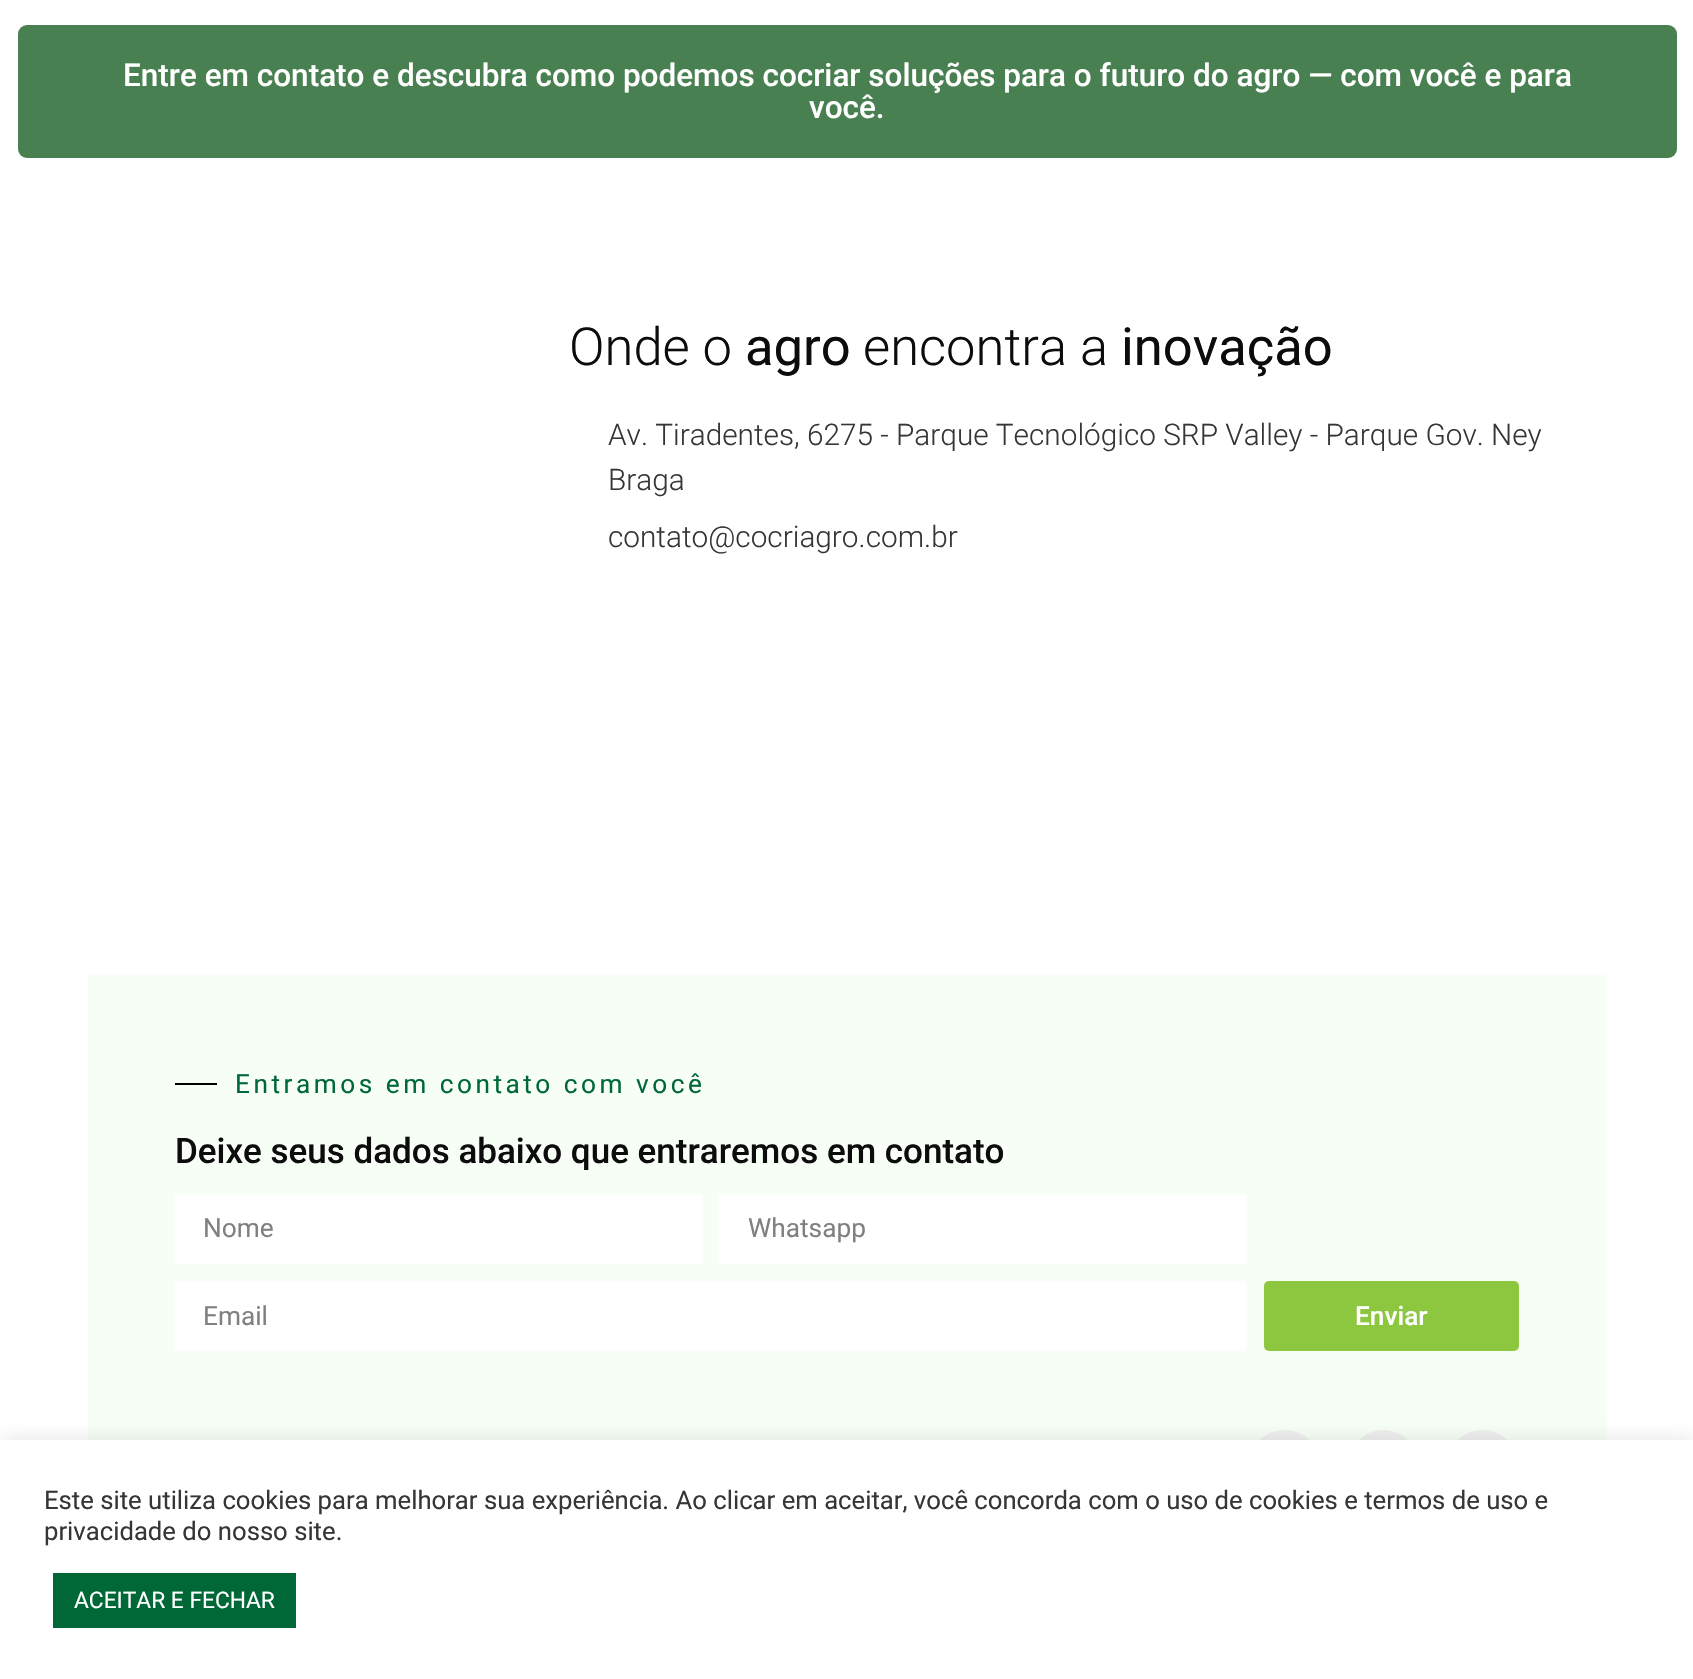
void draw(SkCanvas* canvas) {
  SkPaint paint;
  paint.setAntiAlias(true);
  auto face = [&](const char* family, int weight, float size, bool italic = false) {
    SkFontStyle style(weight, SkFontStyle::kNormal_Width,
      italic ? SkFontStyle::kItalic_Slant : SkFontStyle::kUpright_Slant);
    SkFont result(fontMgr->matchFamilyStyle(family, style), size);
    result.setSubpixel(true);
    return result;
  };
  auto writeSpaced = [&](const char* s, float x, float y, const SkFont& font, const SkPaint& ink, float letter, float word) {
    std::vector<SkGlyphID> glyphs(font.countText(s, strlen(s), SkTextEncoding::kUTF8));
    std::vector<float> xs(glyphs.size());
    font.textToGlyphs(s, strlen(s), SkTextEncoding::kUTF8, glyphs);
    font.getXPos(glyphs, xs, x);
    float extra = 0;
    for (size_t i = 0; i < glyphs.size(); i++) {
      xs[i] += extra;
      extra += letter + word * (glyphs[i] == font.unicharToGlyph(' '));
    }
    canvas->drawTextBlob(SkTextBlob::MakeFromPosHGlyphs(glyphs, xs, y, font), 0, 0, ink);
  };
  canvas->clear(0xffffffff);
  paint.setColor(0xff498051);
  canvas->drawRoundRect(SkRect::MakeXYWH(18, 25, 1659, 133), 9, 9, paint);
  {
    const struct { float x, y, w, h; SkColor color; } items[] = {
      {88, 975, 1519, 465, 0xfff6fef5},
      {175, 1083, 42, 2, 0xff000000},
      {175, 1194, 527, 70, 0xffffffff},
      {719, 1194, 527, 70, 0xffffffff},
      {175, 1281, 1071, 70, 0xffffffff},
    };
    for (auto [x, y, w, h, color] : items) {
      paint.setColor(color);
      canvas->drawRect(SkRect::MakeXYWH(x, y, w, h), paint);
    }
  }
  paint.setColor(0xff8dc63f);
  canvas->drawRoundRect(SkRect::MakeXYWH(1264, 1281, 255, 70), 5, 5, paint);
  paint.setColor(0xffededed);
  canvas->drawCircle(1284.5f, 1466.5f, 36.5f, paint);
  canvas->drawRoundRect(SkRect::MakeXYWH(1348, 1430, 71, 73), 35.5f, 35.5f, paint);
  canvas->drawCircle(1482.5f, 1466.5f, 36.5f, paint);
  paint.setColor(0x4dacabab);
  paint.setMaskFilter(SkMaskFilter::MakeBlur(kNormal_SkBlurStyle, 9));
  canvas->drawRect(SkRect::MakeXYWH(0, 1439, 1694, 239), paint);
  paint.setMaskFilter(nullptr);
  paint.setColor(0xffffffff);
  canvas->drawRect(SkRect::MakeXYWH(0, 1440, 1693, 239), paint);
  paint.setColor(0xff006837);
  canvas->drawRect(SkRect::MakeXYWH(53, 1573, 243, 55), paint);
  auto f0 = face("Roboto", 500, 31.5f);
  paint.setColor(0xffffffff);
  canvas->drawString("Entre em contato e descubra como podemos cocriar soluções para o futuro do agro — com você e para", 123, 86, f0, paint);
  canvas->drawString("você.", 809, 118, f0, paint);
  auto f1 = face("Roboto", 300, 52.5f);
  paint.setColor(0xff0c0c0c);
  canvas->drawString("Onde o", 569, 365, f1, paint);
  auto f2 = face("Roboto", 400, 52.5f);
  canvas->drawString("agro", 745, 365, f2, paint);
  canvas->drawString("encontra a", 863, 365, f1, paint);
  canvas->drawString("inovação", 1121, 365, f2, paint);
  auto f3 = face("Roboto", 300, 29.75f);
  paint.setColor(0xff363636);
  {
    const struct { const char* s; float x, y; } items[] = {
      {"Av. Tiradentes, 6275 - Parque Tecnológico SRP Valley - Parque Gov. Ney", 608, 445},
      {"Braga", 608, 490},
      {"contato@cocriagro.com.br", 608, 547},
    };
    for (auto [s, x, y] : items) {
      canvas->drawString(s, x, y, f3, paint);
    }
  }
  auto f4 = face("Roboto", 400, 26.25f);
  paint.setColor(0xff006837);
  writeSpaced("Entramos em contato com você", 235, 1093, f4, paint, 3.5f, 0);
  auto f5 = face("Roboto", 500, 35);
  paint.setColor(0xff0c0c0c);
  canvas->drawString("Deixe seus dados abaixo que entraremos em contato", 175, 1163, f5, paint);
  paint.setColor(0xff808080);
  {
    const struct { const char* s; float x, y; } items[] = {
      {"Nome", 203, 1237},
      {"Whatsapp", 748, 1237},
      {"Email", 203, 1325},
    };
    for (auto [s, x, y] : items) {
      canvas->drawString(s, x, y, f4, paint);
    }
  }
  auto f6 = face("Roboto", 500, 26.25f);
  paint.setColor(0xffffffff);
  canvas->drawString("Enviar", 1355, 1325, f6, paint);
  auto f7 = face("Roboto", 400, 25.67f);
  paint.setColor(0xff363636);
  canvas->drawString("Este site utiliza cookies para melhorar sua experiência. Ao clicar em aceitar, você concorda com o uso de cookies e termos de uso e", 44, 1509, f7, paint);
  canvas->drawString("privacidade do nosso site.", 44, 1540, f7, paint);
  auto f8 = face("Roboto", 400, 22.75f);
  paint.setColor(0xffffffff);
  canvas->drawString("ACEITAR E FECHAR", 74, 1608, f8, paint);
}
